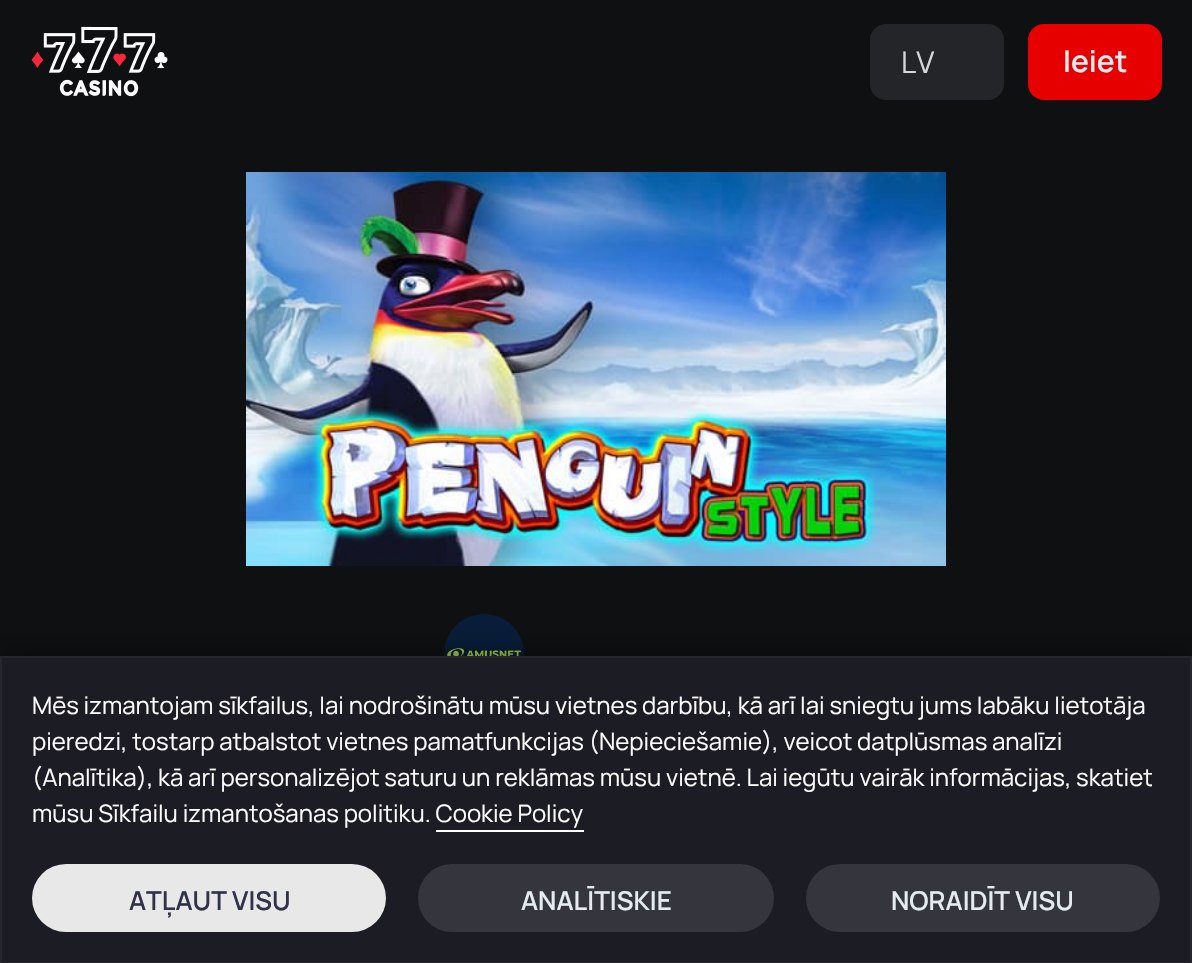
void draw(SkCanvas* canvas) {
  SkPaint paint;
  paint.setAntiAlias(true);
  auto face = [&](const char* family, int weight, float size, bool italic = false) {
    SkFontStyle style(weight, SkFontStyle::kNormal_Width,
      italic ? SkFontStyle::kItalic_Slant : SkFontStyle::kUpright_Slant);
    SkFont result(fontMgr->matchFamilyStyle(family, style), size);
    result.setSubpixel(true);
    return result;
  };
  auto paste = [&](const char* path, float x, float y, float w, float h) {
    auto image = SkImages::DeferredFromEncodedData(SkData::MakeFromFileName(path));
    canvas->drawImageRect(image, SkRect::MakeXYWH(x, y, w, h), SkSamplingOptions());
  };
  canvas->clear(0xff0e1012);
  paste("img/1.png", 31, 26, 137, 71);
  paint.setColor(0xff232528);
  canvas->drawRoundRect(SkRect::MakeXYWH(870, 24, 134, 76), 16, 16, paint);
  paint.setColor(0xffe60000);
  canvas->drawRoundRect(SkRect::MakeXYWH(1028, 24, 134, 76), 16, 16, paint);
  paste("img/2.png", 246, 172, 700, 394);
  paste("img/3.png", 444, 614, 80, 42);
  paint.setColor(0x99000000);
  paint.setMaskFilter(SkMaskFilter::MakeBlur(kNormal_SkBlurStyle, 14));
  canvas->drawRect(SkRect::MakeXYWH(0, 658, 1192, 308), paint);
  paint.setMaskFilter(nullptr);
  paint.setColor(0xff1c1c24);
  canvas->drawRect(SkRect::MakeXYWH(1, 657, 1190, 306), paint);
  paint.setStroke(true);
  paint.setStrokeWidth(2);
  paint.setColor(0xff27262e);
  canvas->drawRect(SkRect::MakeXYWH(1, 657, 1190, 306), paint);
  paint.setStroke(false);
  paint.setColor(0xffffffff);
  canvas->drawRect(SkRect::MakeXYWH(436, 830, 148, 2), paint);
  paint.setColor(0xffe8e8e8);
  canvas->drawRoundRect(SkRect::MakeXYWH(32, 864, 354, 68), 34, 34, paint);
  paint.setColor(0xff34353d);
  canvas->drawRoundRect(SkRect::MakeXYWH(418, 864, 356, 68), 34, 34, paint);
  canvas->drawRoundRect(SkRect::MakeXYWH(806, 864, 354, 68), 34, 34, paint);
  auto f0 = face("Manrope", 400, 30);
  paint.setColor(0xffd5d5da);
  canvas->drawString("LV", 901, 73, f0, paint);
  auto f1 = face("Manrope", 600, 30);
  paint.setColor(0xffe4ecf0);
  canvas->drawString("Ieiet", 1063, 72, f1, paint);
  auto f2 = face("Manrope", 400, 24);
  paint.setColor(0xffffffff);
  {
    const struct { const char* s; float x, y; } items[] = {
      {"Mēs izmantojam sīkfailus, lai nodrošinātu mūsu vietnes darbību, kā arī lai sniegtu jums labāku lietotāja", 32, 714},
      {"pieredzi, tostarp atbalstot vietnes pamatfunkcijas (Nepieciešamie), veicot datplūsmas analīzi", 32, 750},
      {"(Analītika), kā arī personalizējot saturu un reklāmas mūsu vietnē. Lai iegūtu vairāk informācijas, skatiet", 32, 786},
      {"mūsu Sīkfailu izmantošanas politiku. Cookie Policy", 32, 822},
    };
    for (auto [s, x, y] : items) {
      canvas->drawString(s, x, y, f2, paint);
    }
  }
  auto f3 = face("Manrope", 600, 26);
  paint.setColor(0xff303348);
  canvas->drawString("ATĻAUT VISU", 129, 910, f3, paint);
  paint.setColor(0xffe4ecf0);
  canvas->drawString("ANALĪTISKIE", 521, 910, f3, paint);
  canvas->drawString("NORAIDĪT VISU", 891, 910, f3, paint);
}
